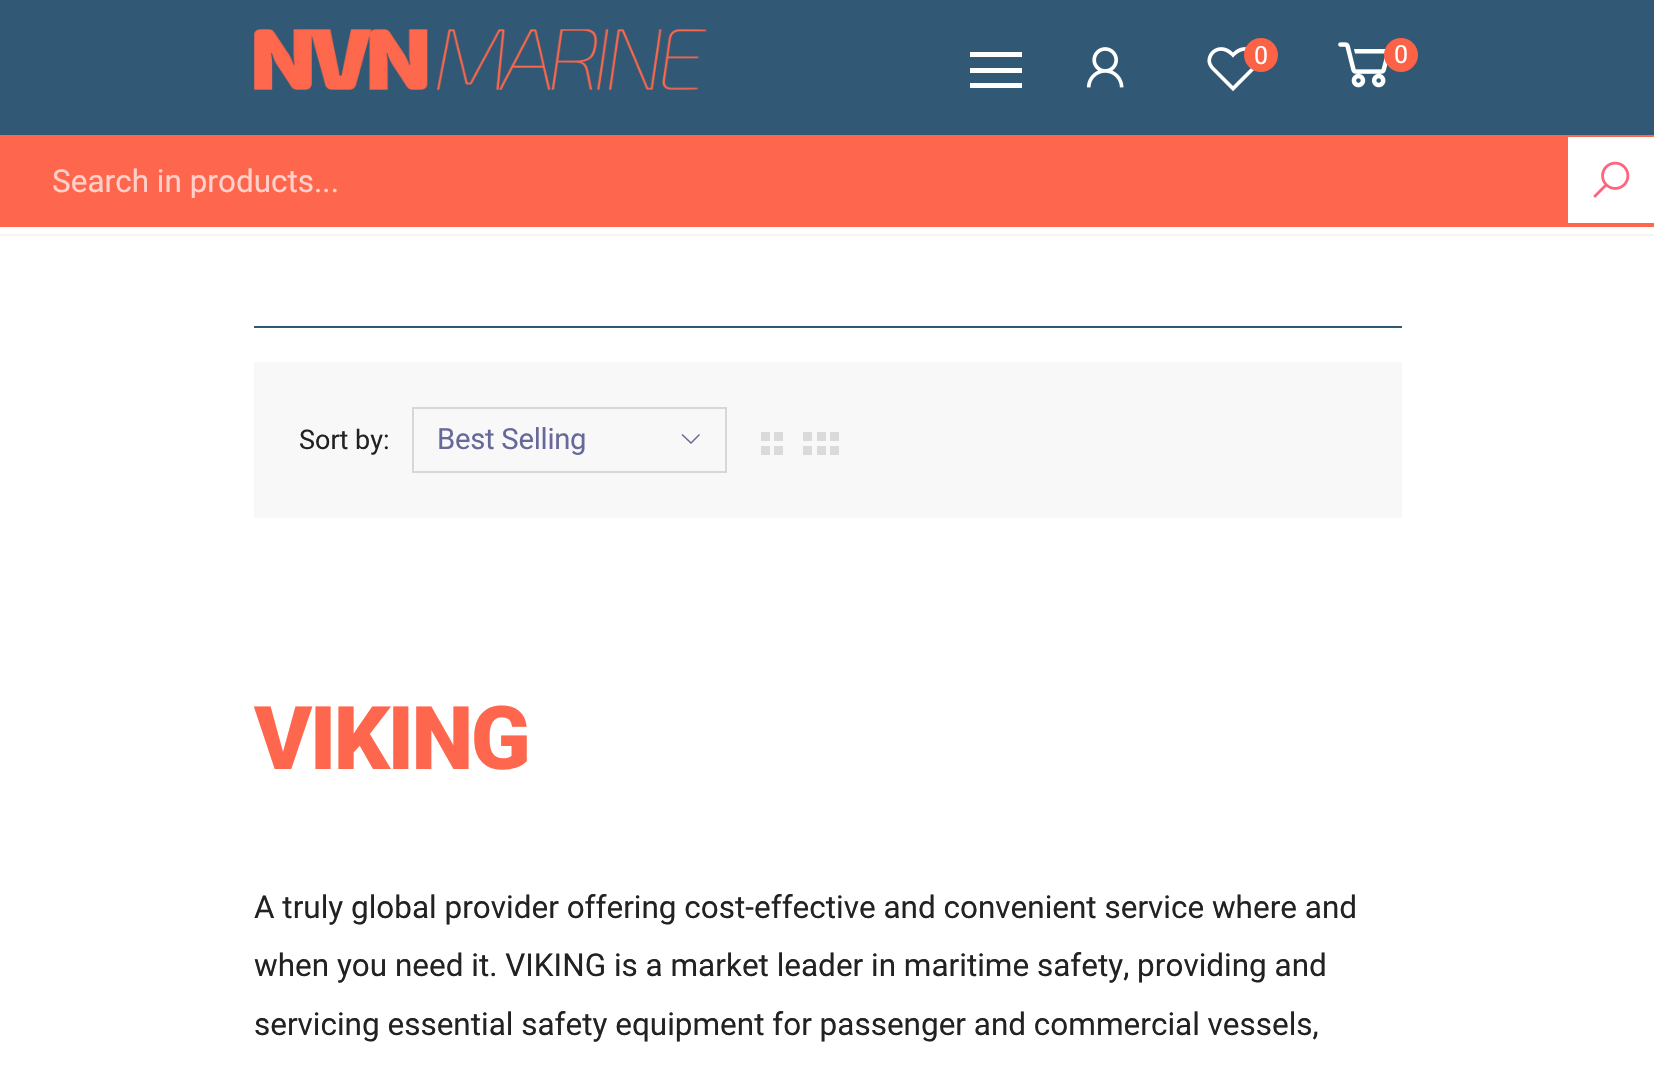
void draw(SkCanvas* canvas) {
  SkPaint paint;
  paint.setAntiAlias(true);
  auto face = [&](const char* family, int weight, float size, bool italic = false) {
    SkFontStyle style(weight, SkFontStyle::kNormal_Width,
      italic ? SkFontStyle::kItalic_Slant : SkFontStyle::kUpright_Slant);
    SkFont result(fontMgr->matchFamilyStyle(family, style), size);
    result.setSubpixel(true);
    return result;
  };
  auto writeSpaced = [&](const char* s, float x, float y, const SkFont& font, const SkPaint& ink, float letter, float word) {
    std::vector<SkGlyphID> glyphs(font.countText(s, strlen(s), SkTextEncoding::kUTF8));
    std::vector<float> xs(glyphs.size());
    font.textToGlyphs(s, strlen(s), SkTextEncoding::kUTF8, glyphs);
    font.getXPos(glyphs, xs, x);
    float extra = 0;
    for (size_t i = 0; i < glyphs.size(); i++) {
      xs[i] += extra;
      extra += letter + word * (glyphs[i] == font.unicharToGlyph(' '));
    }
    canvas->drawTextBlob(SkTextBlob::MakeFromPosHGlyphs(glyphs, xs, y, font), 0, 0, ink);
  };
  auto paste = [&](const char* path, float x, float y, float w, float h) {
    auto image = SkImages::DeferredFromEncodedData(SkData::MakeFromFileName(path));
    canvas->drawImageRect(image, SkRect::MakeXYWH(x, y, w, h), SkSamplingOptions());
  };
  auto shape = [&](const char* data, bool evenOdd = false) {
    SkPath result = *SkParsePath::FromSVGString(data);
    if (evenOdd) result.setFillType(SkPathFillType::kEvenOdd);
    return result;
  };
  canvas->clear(0xffffffff);
  paint.setColor(0xff315874);
  canvas->drawRect(SkRect::MakeXYWH(0, 0, 1654, 135), paint);
  paste("img/1.png", 254, 29, 453, 61);
  {
    const struct { float x, y, w, h; SkColor color; } items[] = {
      {970, 52, 52, 5, 0xffffffff},
      {970, 68, 52, 5, 0xffffffff},
      {970, 83, 52, 5, 0xffffffff},
    };
    for (auto [x, y, w, h, color] : items) {
      paint.setColor(color);
      canvas->drawRect(SkRect::MakeXYWH(x, y, w, h), paint);
    }
  }
  paste("img/2.png", 1086, 47, 38, 41);
  paste("img/3.png", 1207, 47, 47, 45);
  paint.setColor(0xfffb6246);
  canvas->drawCircle(1261, 55, 17, paint);
  paste("img/4.png", 1338, 42, 50, 46);
  canvas->drawCircle(1401, 55, 17, paint);
  paint.setColor(0xfffe674d);
  canvas->drawRect(SkRect::MakeXYWH(0, 135, 1654, 92), paint);
  paint.setColor(0xffffffff);
  canvas->drawRect(SkRect::MakeXYWH(1568, 137, 86, 86), paint);
  paste("img/5.png", 1593, 161, 37, 37);
  {
    const struct { float x, y, w, h; SkColor color; } items[] = {
      {0, 234, 1654, 2, 0xfff4f4f4},
      {254, 326, 1148, 2, 0xff315873},
      {254, 362, 1148, 156, 0xfff8f8f8},
    };
    for (auto [x, y, w, h, color] : items) {
      paint.setColor(color);
      canvas->drawRect(SkRect::MakeXYWH(x, y, w, h), paint);
    }
  }
  paint.setStroke(true);
  paint.setStrokeWidth(2);
  paint.setColor(0xffd7d7d7);
  canvas->drawRect(SkRect::MakeXYWH(413, 408, 313, 64), paint);
  paint.setStroke(false);
  paint.setColor(0xff666999);
  canvas->drawPath(shape("M682.5 434L691 442L699 434L700 435L691 444L681.5 435Z"), paint);
  {
    const struct { float x, y, w, h; SkColor color; } items[] = {
      {761, 432, 9, 9, 0xffdadada},
      {774, 432, 9, 9, 0xffdadada},
      {761, 446, 9, 9, 0xffdadada},
      {774, 446, 9, 9, 0xffdadada},
      {803, 432, 9, 9, 0xffdadada},
      {817, 432, 9, 9, 0xffdadada},
      {830, 432, 9, 9, 0xffdadada},
      {803, 446, 9, 9, 0xffdadada},
      {817, 446, 9, 9, 0xffdadada},
      {830, 446, 9, 9, 0xffdadada},
    };
    for (auto [x, y, w, h, color] : items) {
      paint.setColor(color);
      canvas->drawRect(SkRect::MakeXYWH(x, y, w, h), paint);
    }
  }
  auto f0 = face("Roboto", 400, 25);
  paint.setColor(0xffffffff);
  canvas->drawString("0", 1254, 64, f0, paint);
  canvas->drawString("0", 1394, 63, f0, paint);
  canvas->save();
  canvas->clipRect(SkRect::MakeXYWH(52, 162, 1552, 36));
  auto f1 = face("Roboto", 400, 31.5f);
  paint.setColor(0xffffd1ca);
  canvas->drawString("Search in products...", 52, 192, f1, paint);
  canvas->restore();
  auto f2 = face("Roboto", 400, 27);
  paint.setColor(0xff222222);
  canvas->drawString("Sort by:", 299, 449, f2, paint);
  auto f3 = face("Roboto", 400, 29.25f);
  paint.setColor(0xff666999);
  writeSpaced("Best Selling", 437, 449, f3, paint, -0.25f, 0);
  auto f4 = face("Roboto", 900, 88);
  paint.setColor(0xfffe674d);
  writeSpaced("VIKING", 254, 769, f4, paint, -2.5f, 0);
  paint.setColor(0xff222222);
  {
    const struct { const char* s; float x, y; } items[] = {
      {"A truly global provider offering cost-effective and convenient service where and", 254, 918},
      {"when you need it. VIKING is a market leader in maritime safety, providing and", 254, 976},
      {"servicing essential safety equipment for passenger and commercial vessels,", 254, 1035},
    };
    for (auto [s, x, y] : items) {
      canvas->drawString(s, x, y, f1, paint);
    }
  }
}
